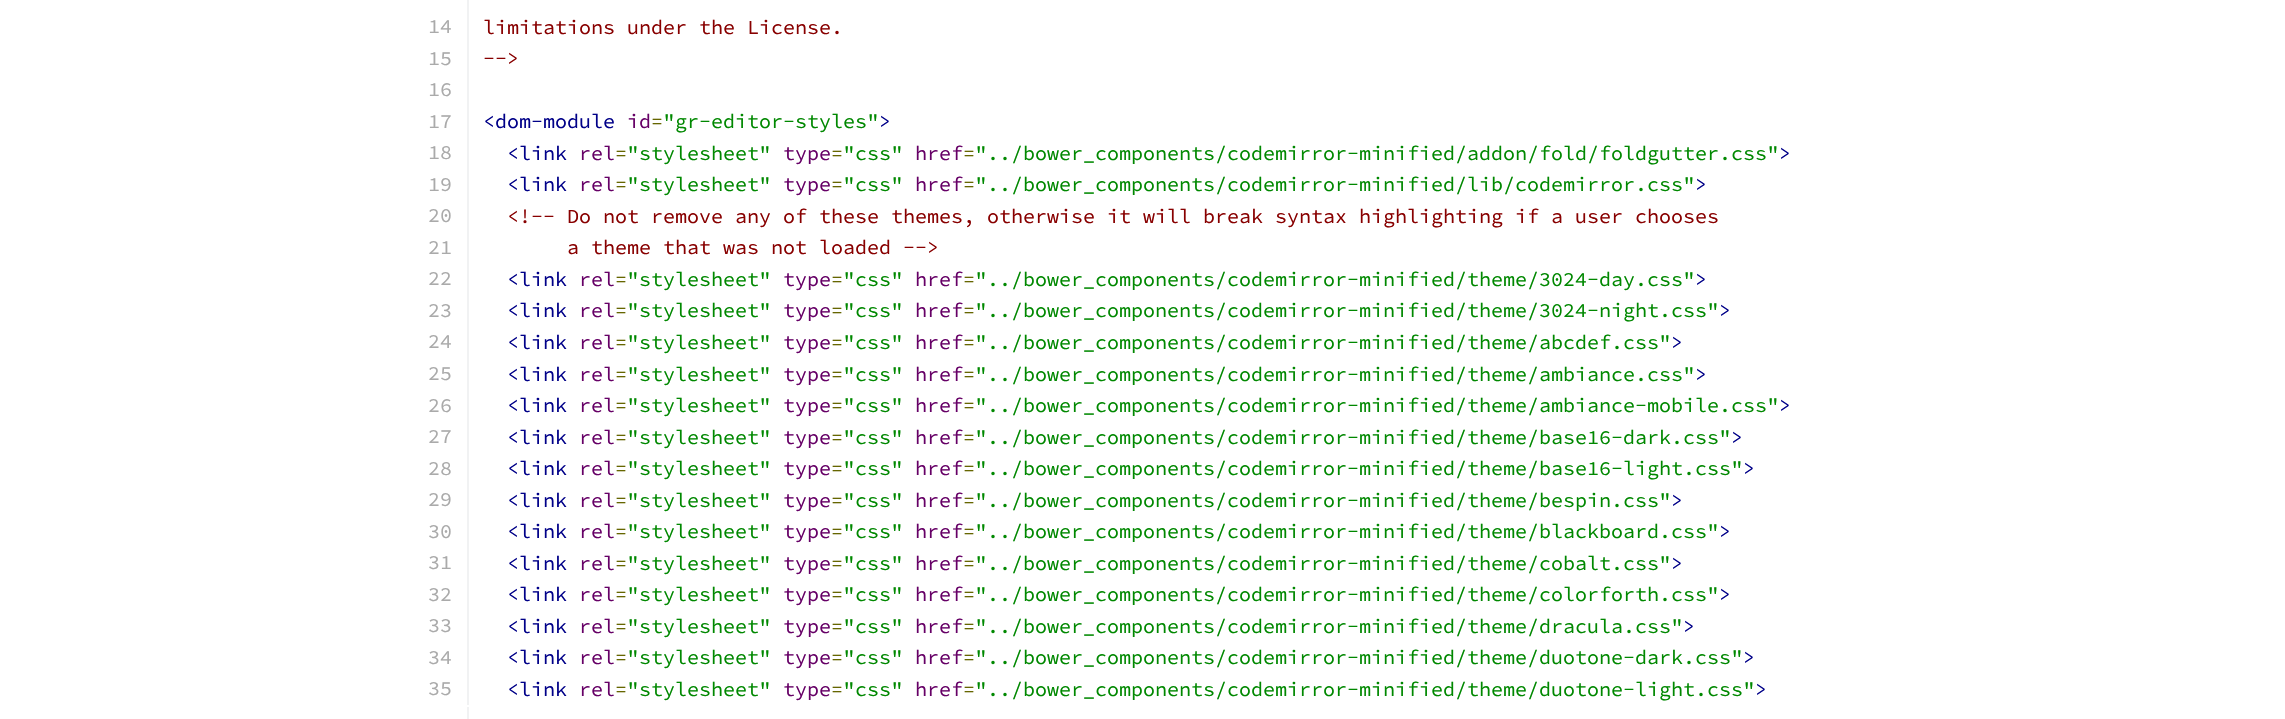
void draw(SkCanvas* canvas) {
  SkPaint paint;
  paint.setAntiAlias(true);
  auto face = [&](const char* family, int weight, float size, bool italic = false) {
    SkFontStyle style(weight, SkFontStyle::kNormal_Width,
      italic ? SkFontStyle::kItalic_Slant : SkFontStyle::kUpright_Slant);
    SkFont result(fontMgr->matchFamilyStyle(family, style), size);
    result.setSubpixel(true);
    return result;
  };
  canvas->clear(0xffffffff);
  paint.setColor(0xfff1f2f3);
  canvas->drawRect(SkRect::MakeXYWH(467, 0, 2, 705), paint);
  canvas->drawRect(SkRect::MakeXYWH(467, 707, 2, 12), paint);
  auto f0 = face("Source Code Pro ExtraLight", 200, 20);
  paint.setColor(0xffaaaaaa);
  canvas->drawString("14", 428, 33, f0, paint);
  paint.setColor(0xff880000);
  canvas->drawString("limitations under the License.", 483, 34, f0, paint);
  paint.setColor(0xffaaaaaa);
  canvas->drawString("15", 428, 65, f0, paint);
  paint.setColor(0xff880000);
  canvas->drawString("-->", 483, 65, f0, paint);
  paint.setColor(0xffaaaaaa);
  canvas->drawString("16", 428, 96, f0, paint);
  canvas->drawString("17", 428, 128, f0, paint);
  paint.setColor(0xff000088);
  canvas->drawString("<dom-module", 483, 128, f0, paint);
  paint.setColor(0xff660066);
  canvas->drawString("id", 627, 128, f0, paint);
  paint.setColor(0xff666600);
  canvas->drawString("=", 651, 128, f0, paint);
  paint.setColor(0xff008800);
  canvas->drawString("\"gr-editor-styles\"", 663, 128, f0, paint);
  paint.setColor(0xff000088);
  canvas->drawString(">", 879, 128, f0, paint);
  paint.setColor(0xffaaaaaa);
  canvas->drawString("18", 428, 159, f0, paint);
  paint.setColor(0xff000088);
  canvas->drawString("<link", 507, 160, f0, paint);
  paint.setColor(0xff660066);
  canvas->drawString("rel", 579, 160, f0, paint);
  paint.setColor(0xff666600);
  canvas->drawString("=", 615, 160, f0, paint);
  paint.setColor(0xff008800);
  canvas->drawString("\"stylesheet\"", 627, 160, f0, paint);
  paint.setColor(0xff660066);
  canvas->drawString("type", 783, 160, f0, paint);
  paint.setColor(0xff666600);
  canvas->drawString("=", 831, 160, f0, paint);
  paint.setColor(0xff008800);
  canvas->drawString("\"css\"", 843, 160, f0, paint);
  paint.setColor(0xff660066);
  canvas->drawString("href", 915, 160, f0, paint);
  paint.setColor(0xff666600);
  canvas->drawString("=", 963, 160, f0, paint);
  paint.setColor(0xff008800);
  canvas->drawString("\"../bower_components/codemirror-minified/addon/fold/foldgutter.css\"", 975, 160, f0, paint);
  paint.setColor(0xff000088);
  canvas->drawString(">", 1779, 160, f0, paint);
  paint.setColor(0xffaaaaaa);
  canvas->drawString("19", 428, 191, f0, paint);
  paint.setColor(0xff000088);
  canvas->drawString("<link", 507, 191, f0, paint);
  paint.setColor(0xff660066);
  canvas->drawString("rel", 579, 191, f0, paint);
  paint.setColor(0xff666600);
  canvas->drawString("=", 615, 191, f0, paint);
  paint.setColor(0xff008800);
  canvas->drawString("\"stylesheet\"", 627, 191, f0, paint);
  paint.setColor(0xff660066);
  canvas->drawString("type", 783, 191, f0, paint);
  paint.setColor(0xff666600);
  canvas->drawString("=", 831, 191, f0, paint);
  paint.setColor(0xff008800);
  canvas->drawString("\"css\"", 843, 191, f0, paint);
  paint.setColor(0xff660066);
  canvas->drawString("href", 915, 191, f0, paint);
  paint.setColor(0xff666600);
  canvas->drawString("=", 963, 191, f0, paint);
  paint.setColor(0xff008800);
  canvas->drawString("\"../bower_components/codemirror-minified/lib/codemirror.css\"", 975, 191, f0, paint);
  paint.setColor(0xff000088);
  canvas->drawString(">", 1695, 191, f0, paint);
  paint.setColor(0xffaaaaaa);
  canvas->drawString("20", 428, 222, f0, paint);
  paint.setColor(0xff880000);
  canvas->drawString("<!-- Do not remove any of these themes, otherwise it will break syntax highlighting if a user chooses", 507, 223, f0, paint);
  paint.setColor(0xffaaaaaa);
  canvas->drawString("21", 428, 254, f0, paint);
  paint.setColor(0xff880000);
  canvas->drawString("a theme that was not loaded -->", 567, 254, f0, paint);
  paint.setColor(0xffaaaaaa);
  canvas->drawString("22", 428, 285, f0, paint);
  paint.setColor(0xff000088);
  canvas->drawString("<link", 507, 286, f0, paint);
  paint.setColor(0xff660066);
  canvas->drawString("rel", 579, 286, f0, paint);
  paint.setColor(0xff666600);
  canvas->drawString("=", 615, 286, f0, paint);
  paint.setColor(0xff008800);
  canvas->drawString("\"stylesheet\"", 627, 286, f0, paint);
  paint.setColor(0xff660066);
  canvas->drawString("type", 783, 286, f0, paint);
  paint.setColor(0xff666600);
  canvas->drawString("=", 831, 286, f0, paint);
  paint.setColor(0xff008800);
  canvas->drawString("\"css\"", 843, 286, f0, paint);
  paint.setColor(0xff660066);
  canvas->drawString("href", 915, 286, f0, paint);
  paint.setColor(0xff666600);
  canvas->drawString("=", 963, 286, f0, paint);
  paint.setColor(0xff008800);
  canvas->drawString("\"../bower_components/codemirror-minified/theme/3024-day.css\"", 975, 286, f0, paint);
  paint.setColor(0xff000088);
  canvas->drawString(">", 1695, 286, f0, paint);
  paint.setColor(0xffaaaaaa);
  canvas->drawString("23", 428, 317, f0, paint);
  paint.setColor(0xff000088);
  canvas->drawString("<link", 507, 317, f0, paint);
  paint.setColor(0xff660066);
  canvas->drawString("rel", 579, 317, f0, paint);
  paint.setColor(0xff666600);
  canvas->drawString("=", 615, 317, f0, paint);
  paint.setColor(0xff008800);
  canvas->drawString("\"stylesheet\"", 627, 317, f0, paint);
  paint.setColor(0xff660066);
  canvas->drawString("type", 783, 317, f0, paint);
  paint.setColor(0xff666600);
  canvas->drawString("=", 831, 317, f0, paint);
  paint.setColor(0xff008800);
  canvas->drawString("\"css\"", 843, 317, f0, paint);
  paint.setColor(0xff660066);
  canvas->drawString("href", 915, 317, f0, paint);
  paint.setColor(0xff666600);
  canvas->drawString("=", 963, 317, f0, paint);
  paint.setColor(0xff008800);
  canvas->drawString("\"../bower_components/codemirror-minified/theme/3024-night.css\"", 975, 317, f0, paint);
  paint.setColor(0xff000088);
  canvas->drawString(">", 1719, 317, f0, paint);
  paint.setColor(0xffaaaaaa);
  canvas->drawString("24", 428, 348, f0, paint);
  paint.setColor(0xff000088);
  canvas->drawString("<link", 507, 349, f0, paint);
  paint.setColor(0xff660066);
  canvas->drawString("rel", 579, 349, f0, paint);
  paint.setColor(0xff666600);
  canvas->drawString("=", 615, 349, f0, paint);
  paint.setColor(0xff008800);
  canvas->drawString("\"stylesheet\"", 627, 349, f0, paint);
  paint.setColor(0xff660066);
  canvas->drawString("type", 783, 349, f0, paint);
  paint.setColor(0xff666600);
  canvas->drawString("=", 831, 349, f0, paint);
  paint.setColor(0xff008800);
  canvas->drawString("\"css\"", 843, 349, f0, paint);
  paint.setColor(0xff660066);
  canvas->drawString("href", 915, 349, f0, paint);
  paint.setColor(0xff666600);
  canvas->drawString("=", 963, 349, f0, paint);
  paint.setColor(0xff008800);
  canvas->drawString("\"../bower_components/codemirror-minified/theme/abcdef.css\"", 975, 349, f0, paint);
  paint.setColor(0xff000088);
  canvas->drawString(">", 1671, 349, f0, paint);
  paint.setColor(0xffaaaaaa);
  canvas->drawString("25", 428, 380, f0, paint);
  paint.setColor(0xff000088);
  canvas->drawString("<link", 507, 381, f0, paint);
  paint.setColor(0xff660066);
  canvas->drawString("rel", 579, 381, f0, paint);
  paint.setColor(0xff666600);
  canvas->drawString("=", 615, 381, f0, paint);
  paint.setColor(0xff008800);
  canvas->drawString("\"stylesheet\"", 627, 381, f0, paint);
  paint.setColor(0xff660066);
  canvas->drawString("type", 783, 381, f0, paint);
  paint.setColor(0xff666600);
  canvas->drawString("=", 831, 381, f0, paint);
  paint.setColor(0xff008800);
  canvas->drawString("\"css\"", 843, 381, f0, paint);
  paint.setColor(0xff660066);
  canvas->drawString("href", 915, 381, f0, paint);
  paint.setColor(0xff666600);
  canvas->drawString("=", 963, 381, f0, paint);
  paint.setColor(0xff008800);
  canvas->drawString("\"../bower_components/codemirror-minified/theme/ambiance.css\"", 975, 381, f0, paint);
  paint.setColor(0xff000088);
  canvas->drawString(">", 1695, 381, f0, paint);
  paint.setColor(0xffaaaaaa);
  canvas->drawString("26", 428, 412, f0, paint);
  paint.setColor(0xff000088);
  canvas->drawString("<link", 507, 412, f0, paint);
  paint.setColor(0xff660066);
  canvas->drawString("rel", 579, 412, f0, paint);
  paint.setColor(0xff666600);
  canvas->drawString("=", 615, 412, f0, paint);
  paint.setColor(0xff008800);
  canvas->drawString("\"stylesheet\"", 627, 412, f0, paint);
  paint.setColor(0xff660066);
  canvas->drawString("type", 783, 412, f0, paint);
  paint.setColor(0xff666600);
  canvas->drawString("=", 831, 412, f0, paint);
  paint.setColor(0xff008800);
  canvas->drawString("\"css\"", 843, 412, f0, paint);
  paint.setColor(0xff660066);
  canvas->drawString("href", 915, 412, f0, paint);
  paint.setColor(0xff666600);
  canvas->drawString("=", 963, 412, f0, paint);
  paint.setColor(0xff008800);
  canvas->drawString("\"../bower_components/codemirror-minified/theme/ambiance-mobile.css\"", 975, 412, f0, paint);
  paint.setColor(0xff000088);
  canvas->drawString(">", 1779, 412, f0, paint);
  paint.setColor(0xffaaaaaa);
  canvas->drawString("27", 428, 443, f0, paint);
  paint.setColor(0xff000088);
  canvas->drawString("<link", 507, 444, f0, paint);
  paint.setColor(0xff660066);
  canvas->drawString("rel", 579, 444, f0, paint);
  paint.setColor(0xff666600);
  canvas->drawString("=", 615, 444, f0, paint);
  paint.setColor(0xff008800);
  canvas->drawString("\"stylesheet\"", 627, 444, f0, paint);
  paint.setColor(0xff660066);
  canvas->drawString("type", 783, 444, f0, paint);
  paint.setColor(0xff666600);
  canvas->drawString("=", 831, 444, f0, paint);
  paint.setColor(0xff008800);
  canvas->drawString("\"css\"", 843, 444, f0, paint);
  paint.setColor(0xff660066);
  canvas->drawString("href", 915, 444, f0, paint);
  paint.setColor(0xff666600);
  canvas->drawString("=", 963, 444, f0, paint);
  paint.setColor(0xff008800);
  canvas->drawString("\"../bower_components/codemirror-minified/theme/base16-dark.css\"", 975, 444, f0, paint);
  paint.setColor(0xff000088);
  canvas->drawString(">", 1731, 444, f0, paint);
  paint.setColor(0xffaaaaaa);
  canvas->drawString("28", 428, 475, f0, paint);
  paint.setColor(0xff000088);
  canvas->drawString("<link", 507, 475, f0, paint);
  paint.setColor(0xff660066);
  canvas->drawString("rel", 579, 475, f0, paint);
  paint.setColor(0xff666600);
  canvas->drawString("=", 615, 475, f0, paint);
  paint.setColor(0xff008800);
  canvas->drawString("\"stylesheet\"", 627, 475, f0, paint);
  paint.setColor(0xff660066);
  canvas->drawString("type", 783, 475, f0, paint);
  paint.setColor(0xff666600);
  canvas->drawString("=", 831, 475, f0, paint);
  paint.setColor(0xff008800);
  canvas->drawString("\"css\"", 843, 475, f0, paint);
  paint.setColor(0xff660066);
  canvas->drawString("href", 915, 475, f0, paint);
  paint.setColor(0xff666600);
  canvas->drawString("=", 963, 475, f0, paint);
  paint.setColor(0xff008800);
  canvas->drawString("\"../bower_components/codemirror-minified/theme/base16-light.css\"", 975, 475, f0, paint);
  paint.setColor(0xff000088);
  canvas->drawString(">", 1743, 475, f0, paint);
  paint.setColor(0xffaaaaaa);
  canvas->drawString("29", 428, 506, f0, paint);
  paint.setColor(0xff000088);
  canvas->drawString("<link", 507, 507, f0, paint);
  paint.setColor(0xff660066);
  canvas->drawString("rel", 579, 507, f0, paint);
  paint.setColor(0xff666600);
  canvas->drawString("=", 615, 507, f0, paint);
  paint.setColor(0xff008800);
  canvas->drawString("\"stylesheet\"", 627, 507, f0, paint);
  paint.setColor(0xff660066);
  canvas->drawString("type", 783, 507, f0, paint);
  paint.setColor(0xff666600);
  canvas->drawString("=", 831, 507, f0, paint);
  paint.setColor(0xff008800);
  canvas->drawString("\"css\"", 843, 507, f0, paint);
  paint.setColor(0xff660066);
  canvas->drawString("href", 915, 507, f0, paint);
  paint.setColor(0xff666600);
  canvas->drawString("=", 963, 507, f0, paint);
  paint.setColor(0xff008800);
  canvas->drawString("\"../bower_components/codemirror-minified/theme/bespin.css\"", 975, 507, f0, paint);
  paint.setColor(0xff000088);
  canvas->drawString(">", 1671, 507, f0, paint);
  paint.setColor(0xffaaaaaa);
  canvas->drawString("30", 428, 538, f0, paint);
  paint.setColor(0xff000088);
  canvas->drawString("<link", 507, 538, f0, paint);
  paint.setColor(0xff660066);
  canvas->drawString("rel", 579, 538, f0, paint);
  paint.setColor(0xff666600);
  canvas->drawString("=", 615, 538, f0, paint);
  paint.setColor(0xff008800);
  canvas->drawString("\"stylesheet\"", 627, 538, f0, paint);
  paint.setColor(0xff660066);
  canvas->drawString("type", 783, 538, f0, paint);
  paint.setColor(0xff666600);
  canvas->drawString("=", 831, 538, f0, paint);
  paint.setColor(0xff008800);
  canvas->drawString("\"css\"", 843, 538, f0, paint);
  paint.setColor(0xff660066);
  canvas->drawString("href", 915, 538, f0, paint);
  paint.setColor(0xff666600);
  canvas->drawString("=", 963, 538, f0, paint);
  paint.setColor(0xff008800);
  canvas->drawString("\"../bower_components/codemirror-minified/theme/blackboard.css\"", 975, 538, f0, paint);
  paint.setColor(0xff000088);
  canvas->drawString(">", 1719, 538, f0, paint);
  paint.setColor(0xffaaaaaa);
  canvas->drawString("31", 428, 569, f0, paint);
  paint.setColor(0xff000088);
  canvas->drawString("<link", 507, 570, f0, paint);
  paint.setColor(0xff660066);
  canvas->drawString("rel", 579, 570, f0, paint);
  paint.setColor(0xff666600);
  canvas->drawString("=", 615, 570, f0, paint);
  paint.setColor(0xff008800);
  canvas->drawString("\"stylesheet\"", 627, 570, f0, paint);
  paint.setColor(0xff660066);
  canvas->drawString("type", 783, 570, f0, paint);
  paint.setColor(0xff666600);
  canvas->drawString("=", 831, 570, f0, paint);
  paint.setColor(0xff008800);
  canvas->drawString("\"css\"", 843, 570, f0, paint);
  paint.setColor(0xff660066);
  canvas->drawString("href", 915, 570, f0, paint);
  paint.setColor(0xff666600);
  canvas->drawString("=", 963, 570, f0, paint);
  paint.setColor(0xff008800);
  canvas->drawString("\"../bower_components/codemirror-minified/theme/cobalt.css\"", 975, 570, f0, paint);
  paint.setColor(0xff000088);
  canvas->drawString(">", 1671, 570, f0, paint);
  paint.setColor(0xffaaaaaa);
  canvas->drawString("32", 428, 601, f0, paint);
  paint.setColor(0xff000088);
  canvas->drawString("<link", 507, 601, f0, paint);
  paint.setColor(0xff660066);
  canvas->drawString("rel", 579, 601, f0, paint);
  paint.setColor(0xff666600);
  canvas->drawString("=", 615, 601, f0, paint);
  paint.setColor(0xff008800);
  canvas->drawString("\"stylesheet\"", 627, 601, f0, paint);
  paint.setColor(0xff660066);
  canvas->drawString("type", 783, 601, f0, paint);
  paint.setColor(0xff666600);
  canvas->drawString("=", 831, 601, f0, paint);
  paint.setColor(0xff008800);
  canvas->drawString("\"css\"", 843, 601, f0, paint);
  paint.setColor(0xff660066);
  canvas->drawString("href", 915, 601, f0, paint);
  paint.setColor(0xff666600);
  canvas->drawString("=", 963, 601, f0, paint);
  paint.setColor(0xff008800);
  canvas->drawString("\"../bower_components/codemirror-minified/theme/colorforth.css\"", 975, 601, f0, paint);
  paint.setColor(0xff000088);
  canvas->drawString(">", 1719, 601, f0, paint);
  paint.setColor(0xffaaaaaa);
  canvas->drawString("33", 428, 632, f0, paint);
  paint.setColor(0xff000088);
  canvas->drawString("<link", 507, 633, f0, paint);
  paint.setColor(0xff660066);
  canvas->drawString("rel", 579, 633, f0, paint);
  paint.setColor(0xff666600);
  canvas->drawString("=", 615, 633, f0, paint);
  paint.setColor(0xff008800);
  canvas->drawString("\"stylesheet\"", 627, 633, f0, paint);
  paint.setColor(0xff660066);
  canvas->drawString("type", 783, 633, f0, paint);
  paint.setColor(0xff666600);
  canvas->drawString("=", 831, 633, f0, paint);
  paint.setColor(0xff008800);
  canvas->drawString("\"css\"", 843, 633, f0, paint);
  paint.setColor(0xff660066);
  canvas->drawString("href", 915, 633, f0, paint);
  paint.setColor(0xff666600);
  canvas->drawString("=", 963, 633, f0, paint);
  paint.setColor(0xff008800);
  canvas->drawString("\"../bower_components/codemirror-minified/theme/dracula.css\"", 975, 633, f0, paint);
  paint.setColor(0xff000088);
  canvas->drawString(">", 1683, 633, f0, paint);
  paint.setColor(0xffaaaaaa);
  canvas->drawString("34", 428, 664, f0, paint);
  paint.setColor(0xff000088);
  canvas->drawString("<link", 507, 664, f0, paint);
  paint.setColor(0xff660066);
  canvas->drawString("rel", 579, 664, f0, paint);
  paint.setColor(0xff666600);
  canvas->drawString("=", 615, 664, f0, paint);
  paint.setColor(0xff008800);
  canvas->drawString("\"stylesheet\"", 627, 664, f0, paint);
  paint.setColor(0xff660066);
  canvas->drawString("type", 783, 664, f0, paint);
  paint.setColor(0xff666600);
  canvas->drawString("=", 831, 664, f0, paint);
  paint.setColor(0xff008800);
  canvas->drawString("\"css\"", 843, 664, f0, paint);
  paint.setColor(0xff660066);
  canvas->drawString("href", 915, 664, f0, paint);
  paint.setColor(0xff666600);
  canvas->drawString("=", 963, 664, f0, paint);
  paint.setColor(0xff008800);
  canvas->drawString("\"../bower_components/codemirror-minified/theme/duotone-dark.css\"", 975, 664, f0, paint);
  paint.setColor(0xff000088);
  canvas->drawString(">", 1743, 664, f0, paint);
  paint.setColor(0xffaaaaaa);
  canvas->drawString("35", 428, 695, f0, paint);
  paint.setColor(0xff000088);
  canvas->drawString("<link", 507, 696, f0, paint);
  paint.setColor(0xff660066);
  canvas->drawString("rel", 579, 696, f0, paint);
  paint.setColor(0xff666600);
  canvas->drawString("=", 615, 696, f0, paint);
  paint.setColor(0xff008800);
  canvas->drawString("\"stylesheet\"", 627, 696, f0, paint);
  paint.setColor(0xff660066);
  canvas->drawString("type", 783, 696, f0, paint);
  paint.setColor(0xff666600);
  canvas->drawString("=", 831, 696, f0, paint);
  paint.setColor(0xff008800);
  canvas->drawString("\"css\"", 843, 696, f0, paint);
  paint.setColor(0xff660066);
  canvas->drawString("href", 915, 696, f0, paint);
  paint.setColor(0xff666600);
  canvas->drawString("=", 963, 696, f0, paint);
  paint.setColor(0xff008800);
  canvas->drawString("\"../bower_components/codemirror-minified/theme/duotone-light.css\"", 975, 696, f0, paint);
  paint.setColor(0xff000088);
  canvas->drawString(">", 1755, 696, f0, paint);
}
